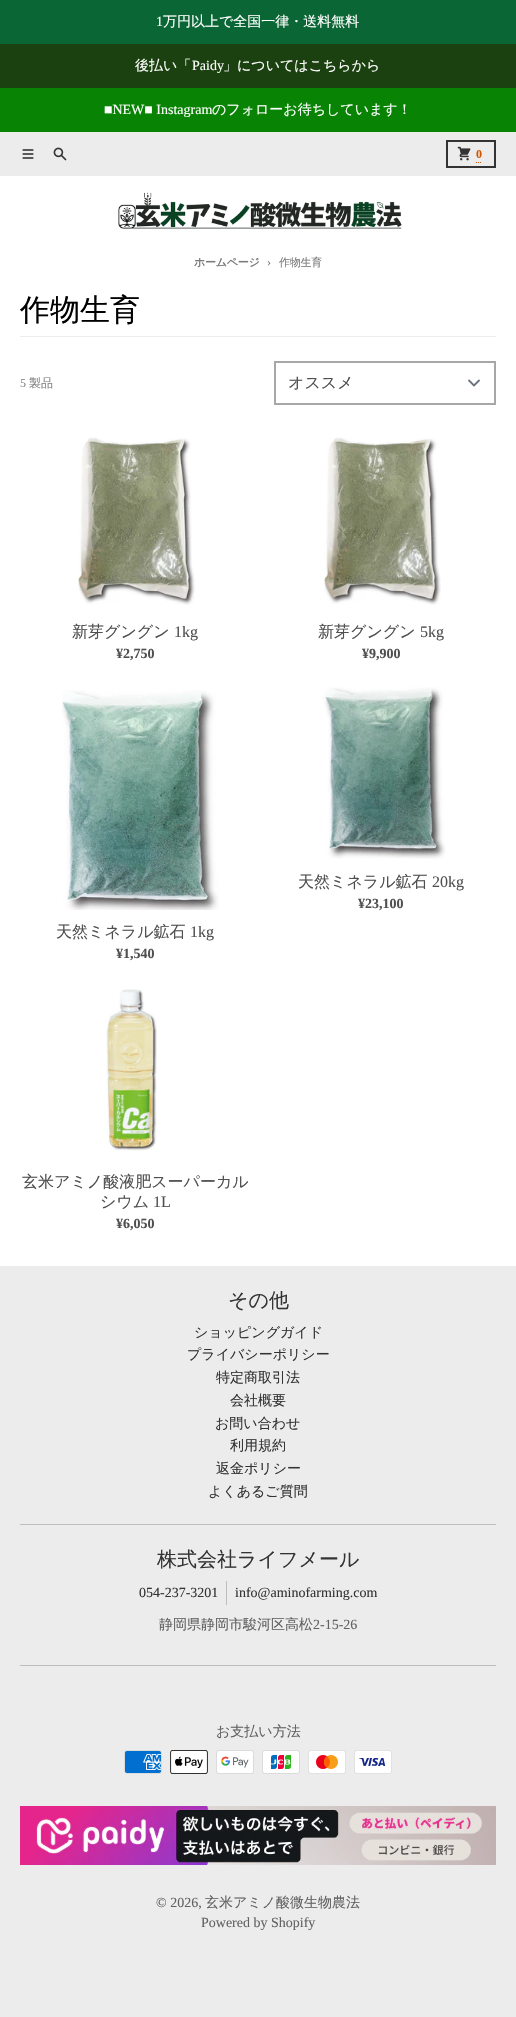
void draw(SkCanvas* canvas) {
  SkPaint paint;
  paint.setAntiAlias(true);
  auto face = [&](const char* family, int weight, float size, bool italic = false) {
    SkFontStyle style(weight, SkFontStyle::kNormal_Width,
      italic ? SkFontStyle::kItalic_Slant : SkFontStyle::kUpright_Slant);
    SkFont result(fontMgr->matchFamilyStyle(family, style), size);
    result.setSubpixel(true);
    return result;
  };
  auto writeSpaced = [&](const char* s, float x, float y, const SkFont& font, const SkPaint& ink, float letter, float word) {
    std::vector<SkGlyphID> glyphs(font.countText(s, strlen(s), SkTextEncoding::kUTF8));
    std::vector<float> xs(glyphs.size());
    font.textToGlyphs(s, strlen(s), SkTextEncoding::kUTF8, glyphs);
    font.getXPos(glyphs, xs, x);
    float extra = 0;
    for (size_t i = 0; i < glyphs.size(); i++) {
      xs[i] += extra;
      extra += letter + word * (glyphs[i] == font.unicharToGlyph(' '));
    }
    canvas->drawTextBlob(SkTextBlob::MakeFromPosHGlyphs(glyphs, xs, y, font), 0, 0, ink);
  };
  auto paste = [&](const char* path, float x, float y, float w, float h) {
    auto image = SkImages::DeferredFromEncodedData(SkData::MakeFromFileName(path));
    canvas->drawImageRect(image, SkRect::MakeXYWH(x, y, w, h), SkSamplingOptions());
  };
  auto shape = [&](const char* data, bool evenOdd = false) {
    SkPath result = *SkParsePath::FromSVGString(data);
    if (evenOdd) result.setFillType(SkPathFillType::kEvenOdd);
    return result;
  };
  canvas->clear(0xffececec);
  {
    const struct { float x, y, w, h; SkColor color; } items[] = {
      {0, 0, 516, 44, 0xff0b6635},
      {0, 44, 516, 44, 0xff1a410f},
      {0, 88, 516, 44, 0xff088304},
    };
    for (auto [x, y, w, h, color] : items) {
      paint.setColor(color);
      canvas->drawRect(SkRect::MakeXYWH(x, y, w, h), paint);
    }
  }
  paste("img/1.png", 22, 149, 12, 10);
  paste("img/2.png", 53, 147, 14, 14);
  paint.setStroke(true);
  paint.setStrokeWidth(2);
  paint.setColor(0xff333333);
  canvas->drawRect(SkRect::MakeXYWH(447, 141, 48, 26), paint);
  paste("img/3.png", 457, 146, 14, 15);
  paint.setStrokeWidth(1);
  paint.setColor(0xffd35400);
  canvas->drawPath(shape("M476 162.5H477M478 162.5H479M480 162.5H481"), paint);
  paint.setStroke(false);
  paint.setColor(0xffffffff);
  canvas->drawRect(SkRect::MakeXYWH(0, 176, 516, 1090), paint);
  paste("img/4.png", 118, 192, 284, 37);
  paint.setColor(0xffededed);
  canvas->drawRect(SkRect::MakeXYWH(20, 336, 476, 1), paint);
  paint.setStroke(true);
  paint.setStrokeWidth(1.8f);
  paint.setStrokeCap(SkPaint::kRound_Cap);
  paint.setStrokeJoin(SkPaint::kRound_Join);
  paint.setColor(0xff6b7280);
  canvas->drawPath(shape("M469 380.5L474 385.5L479 380.5"), paint);
  paint.setStrokeWidth(2);
  paint.setStrokeCap(SkPaint::kButt_Cap);
  paint.setStrokeJoin(SkPaint::kMiter_Join);
  paint.setColor(0xffa7a7a7);
  canvas->drawRect(SkRect::MakeXYWH(275, 362, 220, 42), paint);
  paste("img/5.png", 78, 437, 117, 168);
  paste("img/5.png", 324, 437, 117, 168);
  paste("img/6.png", 322, 687, 124, 172);
  paste("img/7.png", 62, 690, 157, 220);
  paste("img/8.png", 106, 989, 51, 162);
  paint.setStroke(false);
  {
    const struct { float x, y, w, h; SkColor color; } items[] = {
      {20, 1524, 476, 1, 0xffbebebe},
      {226, 1581, 1, 24, 0xffbebebe},
      {20, 1665, 476, 1, 0xffbebebe},
    };
    for (auto [x, y, w, h, color] : items) {
      paint.setColor(color);
      canvas->drawRect(SkRect::MakeXYWH(x, y, w, h), paint);
    }
  }
  paste("img/9.png", 124, 1750, 38, 24);
  paste("img/10.png", 170, 1750, 38, 24);
  paste("img/11.png", 216, 1750, 38, 24);
  paste("img/12.png", 262, 1750, 38, 24);
  paste("img/13.png", 308, 1750, 38, 24);
  paste("img/14.png", 354, 1750, 38, 24);
  paste("img/15.png", 20, 1806, 476, 59);
  auto f0 = face("Liberation Serif", 400, 14);
  paint.setColor(0xffffffff);
  canvas->drawString("1", 156, 26, f0, paint);
  auto f1 = face("WenQuanYi Zen Hei", 500, 14);
  canvas->drawString("万円以上で全国一律・送料無料", 163, 26, f1, paint);
  canvas->drawString("後払い「", 135, 70, f1, paint);
  canvas->drawString("Paidy", 192, 70, f0, paint);
  canvas->drawString("」についてはこちらから", 223, 70, f1, paint);
  canvas->drawString("■NEW■ Instagram", 104, 114, f0, paint);
  canvas->drawString("のフォローお待ちしています！", 212, 114, f1, paint);
  auto f2 = face("Liberation Serif", 700, 12);
  paint.setColor(0xffd35400);
  canvas->drawString("0", 476, 158, f2, paint);
  auto f3 = face("WenQuanYi Zen Hei", 700, 11);
  paint.setColor(0xff7b7b7b);
  writeSpaced("ホームページ", 194, 266, f3, paint, -0.25f, 0);
  auto f4 = face("Liberation Serif", 400, 12);
  writeSpaced("›", 267, 266, f4, paint, -0.25f, 0);
  auto f5 = face("WenQuanYi Zen Hei", 500, 11);
  writeSpaced("作物生育", 279, 266, f5, paint, -0.25f, 0);
  auto f6 = face("WenQuanYi Zen Hei", 500, 30);
  paint.setColor(0xff000000);
  canvas->drawString("作物生育", 20, 320, f6, paint);
  paint.setColor(0xff848484);
  canvas->drawString("5", 20, 387, f4, paint);
  auto f7 = face("WenQuanYi Zen Hei", 500, 12);
  canvas->drawString("製品", 29, 387, f7, paint);
  auto f8 = face("WenQuanYi Zen Hei", 500, 16);
  paint.setColor(0xff4f4f4f);
  canvas->drawString("オススメ", 288, 388, f8, paint);
  canvas->drawString("新芽グングン", 72, 637, f8, paint);
  auto f9 = face("Liberation Serif", 400, 16);
  canvas->drawString("1kg", 174, 637, f9, paint);
  auto f10 = face("Liberation Serif", 700, 14);
  canvas->drawString("¥2,750", 116, 658, f10, paint);
  canvas->drawString("新芽グングン", 318, 637, f8, paint);
  canvas->drawString("5kg", 420, 637, f9, paint);
  canvas->drawString("¥9,900", 362, 658, f10, paint);
  canvas->drawString("天然ミネラル鉱石", 298, 887, f8, paint);
  canvas->drawString("20kg", 432, 887, f9, paint);
  canvas->drawString("¥23,100", 358, 908, f10, paint);
  canvas->drawString("天然ミネラル鉱石", 56, 937, f8, paint);
  canvas->drawString("1kg", 190, 937, f9, paint);
  canvas->drawString("¥1,540", 116, 958, f10, paint);
  canvas->drawString("玄米アミノ酸液肥スーパーカル", 22, 1187, f8, paint);
  canvas->drawString("シウム", 100, 1207, f8, paint);
  canvas->drawString("1L", 153, 1207, f9, paint);
  canvas->drawString("¥6,050", 116, 1228, f10, paint);
  auto f11 = face("WenQuanYi Zen Hei", 500, 20);
  paint.setColor(0xff333333);
  canvas->drawString("その他", 228, 1307, f11, paint);
  {
    const struct { const char* s; float x, y; } items[] = {
      {"ショッピングガイド", 194, 1337},
      {"プライバシーポリシー", 187, 1359},
      {"特定商取引法", 216, 1382},
      {"会社概要", 230, 1405},
      {"お問い合わせ", 215, 1428},
      {"利用規約", 230, 1450},
      {"返金ポリシー", 216, 1473},
      {"よくあるご質問", 208, 1496},
    };
    for (auto [s, x, y] : items) {
      canvas->drawString(s, x, y, f1, paint);
    }
  }
  canvas->drawString("株式会社ライフメール", 157, 1566, f11, paint);
  canvas->drawString("054-237-3201", 139, 1597, f0, paint);
  canvas->drawString("info@aminofarming.com", 235, 1597, f0, paint);
  paint.setColor(0xff616161);
  canvas->drawString("静岡県静岡市駿河区高松", 159, 1629, f1, paint);
  canvas->drawString("2-15-26", 313, 1629, f0, paint);
  canvas->drawString("お支払い方法", 216, 1736, f1, paint);
  canvas->drawString("© 2026,", 156, 1907, f0, paint);
  canvas->drawString("玄米アミノ酸微生物農法", 205, 1907, f1, paint);
  canvas->drawString("Powered by Shopify", 201, 1927, f0, paint);
}
